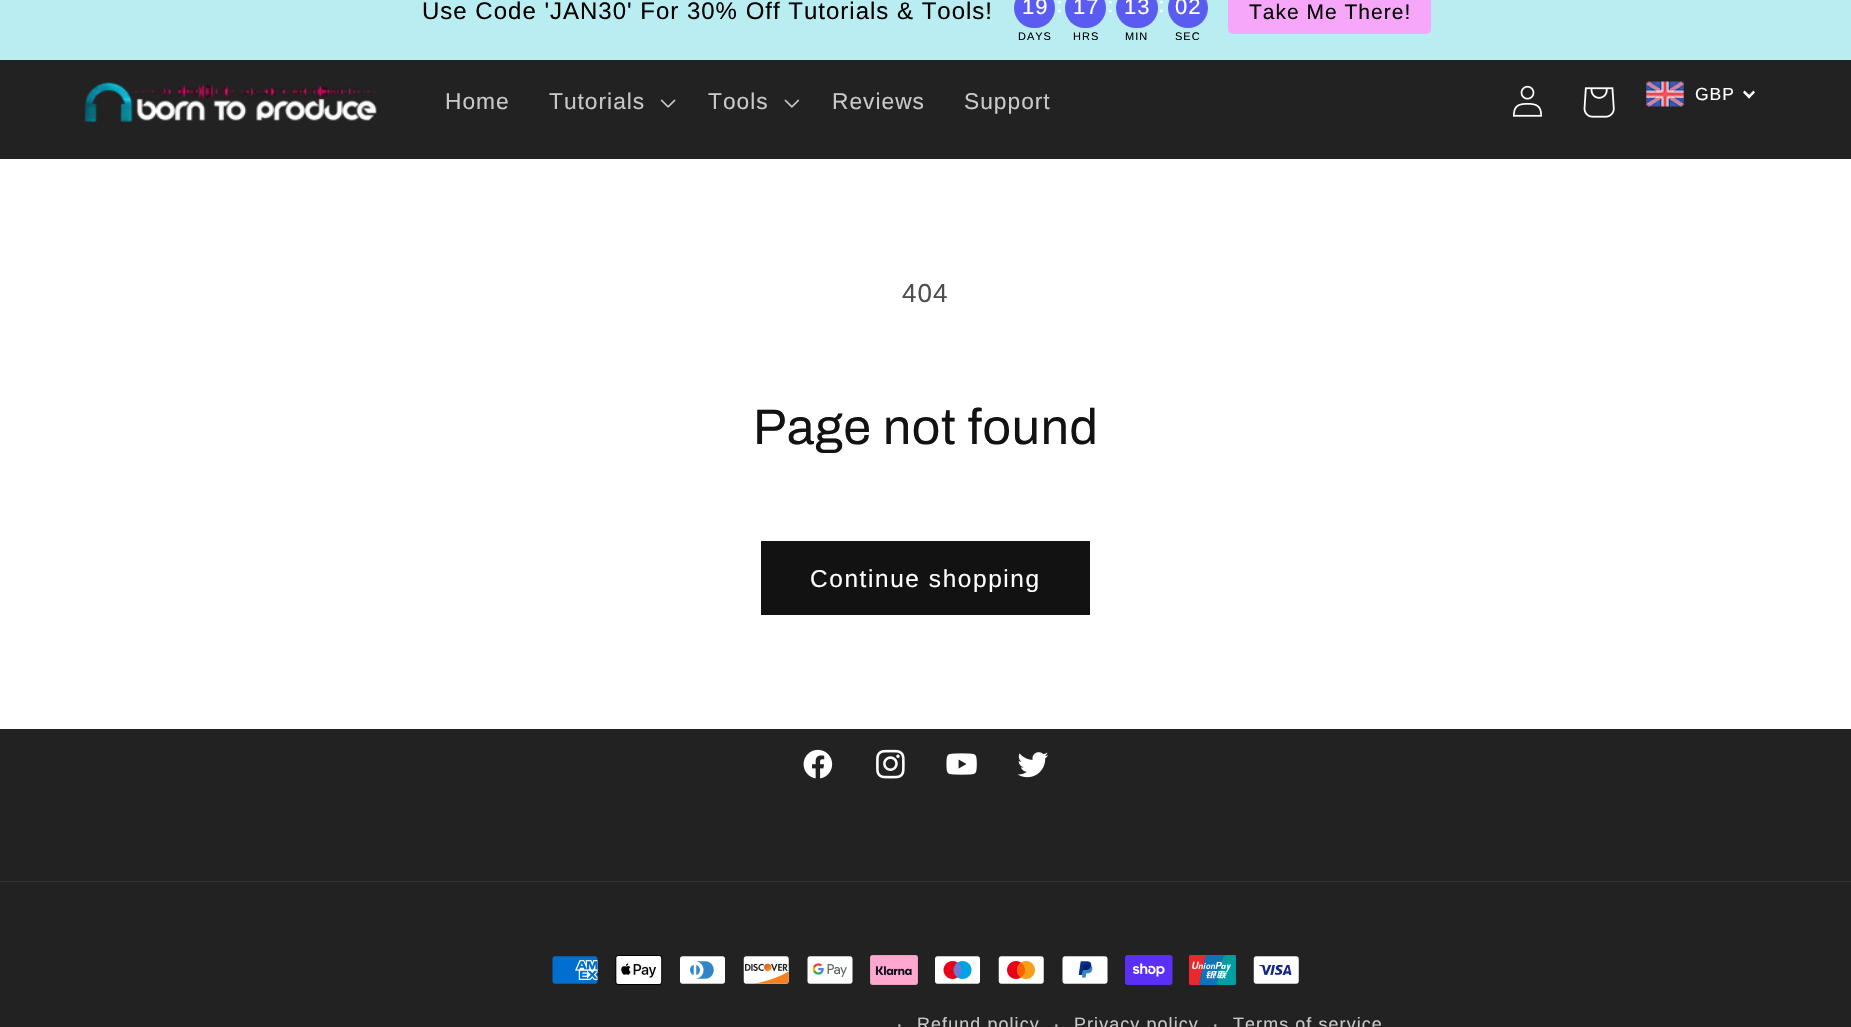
void draw(SkCanvas* canvas) {
  SkPaint paint;
  paint.setAntiAlias(true);
  auto face = [&](const char* family, int weight, float size, bool italic = false) {
    SkFontStyle style(weight, SkFontStyle::kNormal_Width,
      italic ? SkFontStyle::kItalic_Slant : SkFontStyle::kUpright_Slant);
    SkFont result(fontMgr->matchFamilyStyle(family, style), size);
    result.setSubpixel(true);
    return result;
  };
  auto writeSpaced = [&](const char* s, float x, float y, const SkFont& font, const SkPaint& ink, float letter, float word) {
    std::vector<SkGlyphID> glyphs(font.countText(s, strlen(s), SkTextEncoding::kUTF8));
    std::vector<float> xs(glyphs.size());
    font.textToGlyphs(s, strlen(s), SkTextEncoding::kUTF8, glyphs);
    font.getXPos(glyphs, xs, x);
    float extra = 0;
    for (size_t i = 0; i < glyphs.size(); i++) {
      xs[i] += extra;
      extra += letter + word * (glyphs[i] == font.unicharToGlyph(' '));
    }
    canvas->drawTextBlob(SkTextBlob::MakeFromPosHGlyphs(glyphs, xs, y, font), 0, 0, ink);
  };
  auto paste = [&](const char* path, float x, float y, float w, float h) {
    auto image = SkImages::DeferredFromEncodedData(SkData::MakeFromFileName(path));
    canvas->drawImageRect(image, SkRect::MakeXYWH(x, y, w, h), SkSamplingOptions());
  };
  auto shape = [&](const char* data, bool evenOdd = false) {
    SkPath result = *SkParsePath::FromSVGString(data);
    if (evenOdd) result.setFillType(SkPathFillType::kEvenOdd);
    return result;
  };
  canvas->clear(0xffffffff);
  paint.setColor(0xffbaedf2);
  canvas->drawRect(SkRect::MakeXYWH(0, 0, 1851, 60), paint);
  paint.setColor(0xff5a5cf1);
  canvas->drawRoundRect(SkRect::MakeXYWH(1014, -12, 41, 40), 20, 20, paint);
  canvas->drawRoundRect(SkRect::MakeXYWH(1065, -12, 41, 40), 20, 20, paint);
  canvas->drawRoundRect(SkRect::MakeXYWH(1116, -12, 42, 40), 20, 20, paint);
  canvas->drawCircle(1188, 8, 20, paint);
  paint.setColor(0xfff7a7f9);
  canvas->drawRoundRect(SkRect::MakeXYWH(1228, -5, 203, 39), 5, 5, paint);
  paint.setColor(0xff222222);
  canvas->drawRect(SkRect::MakeXYWH(0, 60, 1851, 99), paint);
  paste("img/1.png", 84, 82, 293, 41);
  paste("img/2.png", 660, 99, 16, 9);
  paste("img/3.png", 784, 99, 16, 9);
  paste("img/4.png", 1512, 85, 31, 32);
  paste("img/5.png", 1583, 87, 32, 31);
  paste("img/6.png", 1646, 81, 38, 26);
  paint.setColor(0xffffffff);
  canvas->drawPath(shape("M1753.5 90.5L1755 92.5L1749 98.5L1747.5 96.5Z"), paint);
  canvas->drawPath(shape("M1744.5 90.5L1751 96.5L1749 98.5L1743 92.5Z"), paint);
  paint.setColor(0xff121212);
  canvas->drawRect(SkRect::MakeXYWH(761, 541, 329, 74), paint);
  paint.setColor(0xff222222);
  canvas->drawRect(SkRect::MakeXYWH(0, 729, 1851, 298), paint);
  paste("img/7.png", 803, 749, 30, 30);
  paste("img/8.png", 876, 749, 29, 30);
  paste("img/9.png", 946, 753, 31, 22);
  paste("img/10.png", 1017, 752, 32, 26);
  paint.setColor(0xff343434);
  canvas->drawRect(SkRect::MakeXYWH(0, 881, 1851, 1), paint);
  paste("img/11.png", 552, 956, 46, 28);
  paste("img/12.png", 615, 955, 48, 30);
  paste("img/13.png", 680, 956, 45, 28);
  paste("img/14.png", 743, 956, 46, 28);
  paste("img/15.png", 807, 956, 46, 28);
  paste("img/16.png", 870, 955, 48, 30);
  paste("img/17.png", 935, 956, 45, 28);
  paste("img/18.png", 998, 956, 46, 28);
  paste("img/19.png", 1062, 956, 46, 28);
  paste("img/20.png", 1125, 955, 48, 30);
  paste("img/21.png", 1189, 955, 47, 30);
  paste("img/22.png", 1253, 956, 46, 28);
  auto f0 = face("Liberation Sans", 400, 24);
  paint.setColor(0xff000000);
  writeSpaced("Use Code 'JAN30' For 30% Off Tutorials & Tools!", 422, 19, f0, paint, 1, 0);
  auto f1 = face("Liberation Sans", 400, 22);
  paint.setColor(0xffffffff);
  writeSpaced("19", 1022, 14, f1, paint, 1, 0);
  auto f2 = face("Liberation Serif", 400, 24);
  writeSpaced(":", 1056, 12, f2, paint, 1, 0);
  writeSpaced("17", 1073, 14, f1, paint, 1, 0);
  writeSpaced(":", 1107, 12, f2, paint, 1, 0);
  writeSpaced("13", 1124, 14, f1, paint, 1, 0);
  writeSpaced(":", 1158, 12, f2, paint, 1, 0);
  writeSpaced("02", 1175, 14, f1, paint, 1, 0);
  auto f3 = face("Liberation Sans", 400, 11);
  paint.setColor(0xff000000);
  {
    const struct { const char* s; float x, y; } items[] = {
      {"DAYS", 1018, 40},
      {"HRS", 1073, 40},
      {"MIN", 1125, 40},
      {"SEC", 1175, 40},
    };
    for (auto [s, x, y] : items) {
      writeSpaced(s, x, y, f3, paint, 1, 0);
    }
  }
  auto f4 = face("Liberation Sans", 400, 21);
  writeSpaced("Take Me There!", 1249, 19, f4, paint, 1, 0);
  auto f5 = face("Liberation Sans", 400, 22.75f);
  paint.setColor(0xffc8c8c8);
  {
    const struct { const char* s; float x, y; } items[] = {
      {"Home", 445, 109},
      {"Tutorials", 549, 109},
      {"Tools", 708, 109},
      {"Reviews", 832, 109},
      {"Support", 964, 109},
    };
    for (auto [s, x, y] : items) {
      writeSpaced(s, x, y, f5, paint, 1, 0);
    }
  }
  auto f6 = face("Liberation Sans", 400, 17.5f);
  paint.setColor(0xffffffff);
  writeSpaced("GBP", 1695, 100, f6, paint, 1, 0);
  auto f7 = face("Liberation Sans", 400, 26);
  paint.setColor(0xff4d4d4d);
  writeSpaced("404", 902, 302, f7, paint, 1, 0);
  auto f8 = face("Archivo", 400, 50);
  paint.setColor(0xff121212);
  writeSpaced("Page not found", 753, 444, f8, paint, 0.75f, 0);
  auto f9 = face("Liberation Sans", 400, 24.4f);
  paint.setColor(0xffffffff);
  writeSpaced("Continue shopping", 810, 587, f9, paint, 1.6f, 0);
  auto f10 = face("Liberation Sans", 400, 20);
  paint.setColor(0xffc8c8c8);
  writeSpaced("·", 896, 1031, f10, paint, 1.1f, 0);
  auto f11 = face("Liberation Sans", 400, 17.9f);
  writeSpaced("Refund policy", 917, 1030, f11, paint, 1.1f, 0);
  writeSpaced("·", 1053, 1031, f10, paint, 1.1f, 0);
  writeSpaced("Privacy policy", 1074, 1030, f11, paint, 1.1f, 0);
  writeSpaced("·", 1212, 1031, f10, paint, 1.1f, 0);
  writeSpaced("Terms of service", 1233, 1030, f11, paint, 1.1f, 0);
}
